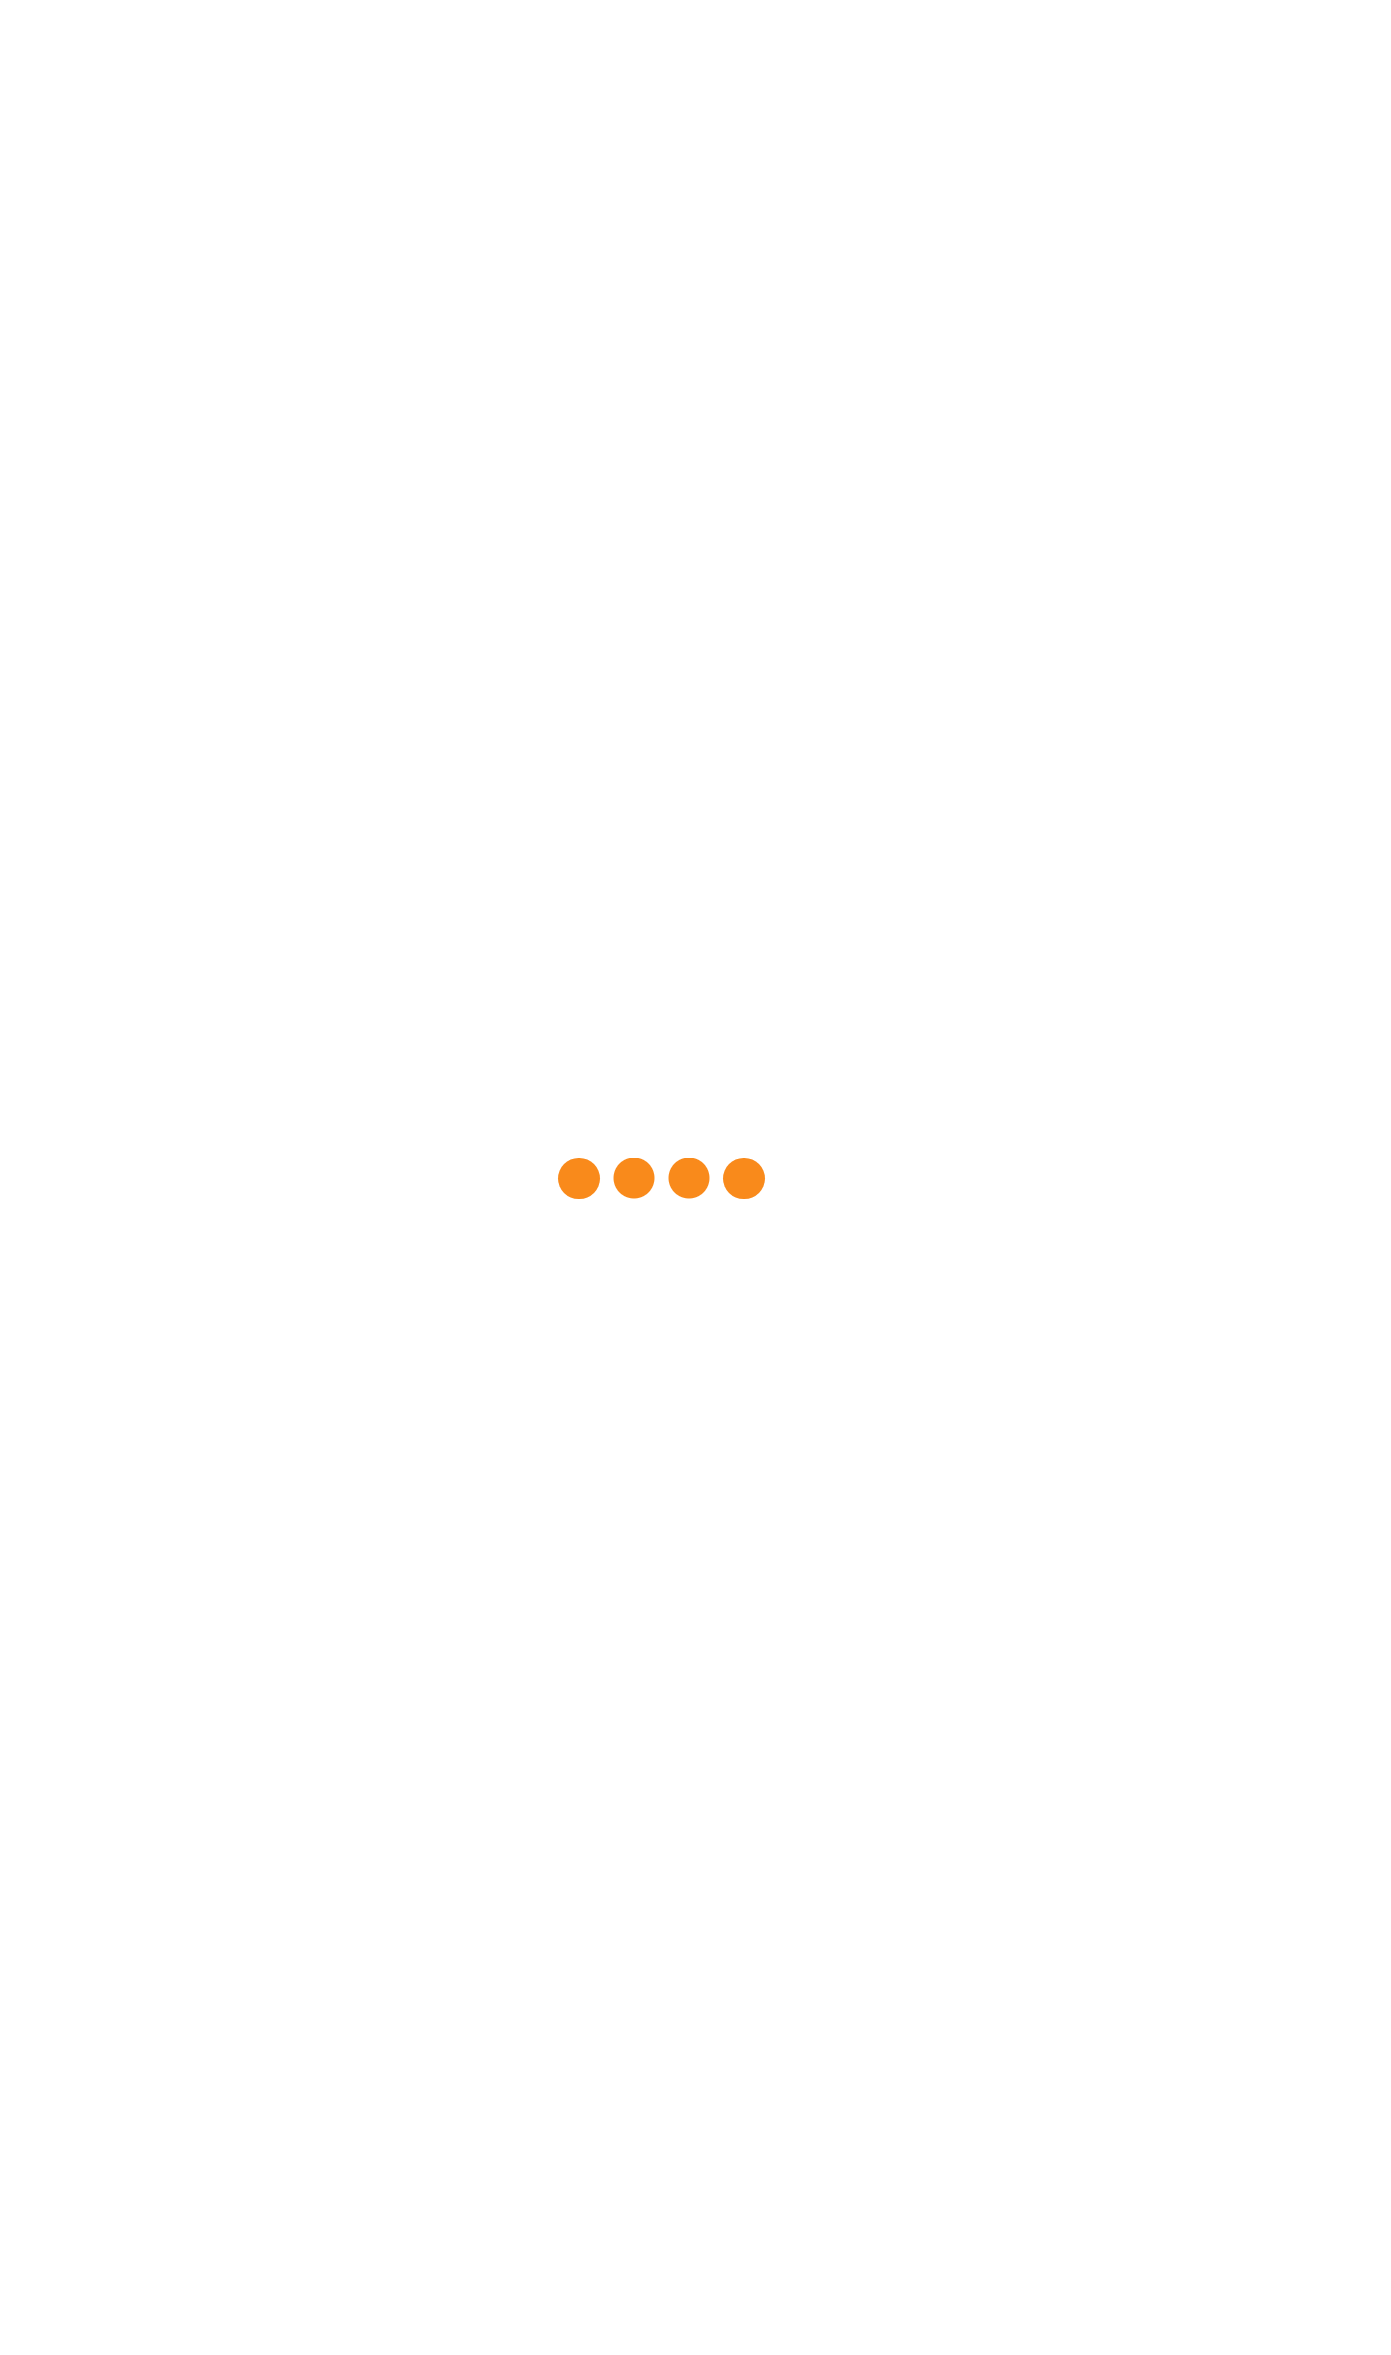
void draw(SkCanvas* canvas) {
  SkPaint paint;
  paint.setAntiAlias(true);
  canvas->clear(0xffffffff);
  {
    const SkColor colors[] = {0xfff98a1b, 0xffffffff};
    const float stops[] = {0.95f, 1};
    paint.setShader(SkGradientShader::MakeRadial({689, 1178}, 21, colors, stops, 2, SkTileMode::kClamp));
    paint.setAlpha(255);
  }
  canvas->drawRect(SkRect::MakeXYWH(668, 1158, 42, 41), paint);
  {
    const SkColor colors[] = {0xfff98a1b, 0xffffffff};
    const float stops[] = {0.95f, 1};
    paint.setShader(SkGradientShader::MakeRadial({634, 1178}, 21, colors, stops, 2, SkTileMode::kClamp));
    paint.setAlpha(255);
  }
  canvas->drawRect(SkRect::MakeXYWH(613, 1158, 42, 41), paint);
  paint.setShader(nullptr);
  paint.setColor(0xfff98a1b);
  canvas->drawRoundRect(SkRect::MakeXYWH(558, 1158, 42, 41), 20.5f, 20.5f, paint);
  canvas->drawRoundRect(SkRect::MakeXYWH(723, 1158, 42, 41), 20.5f, 20.5f, paint);
}
